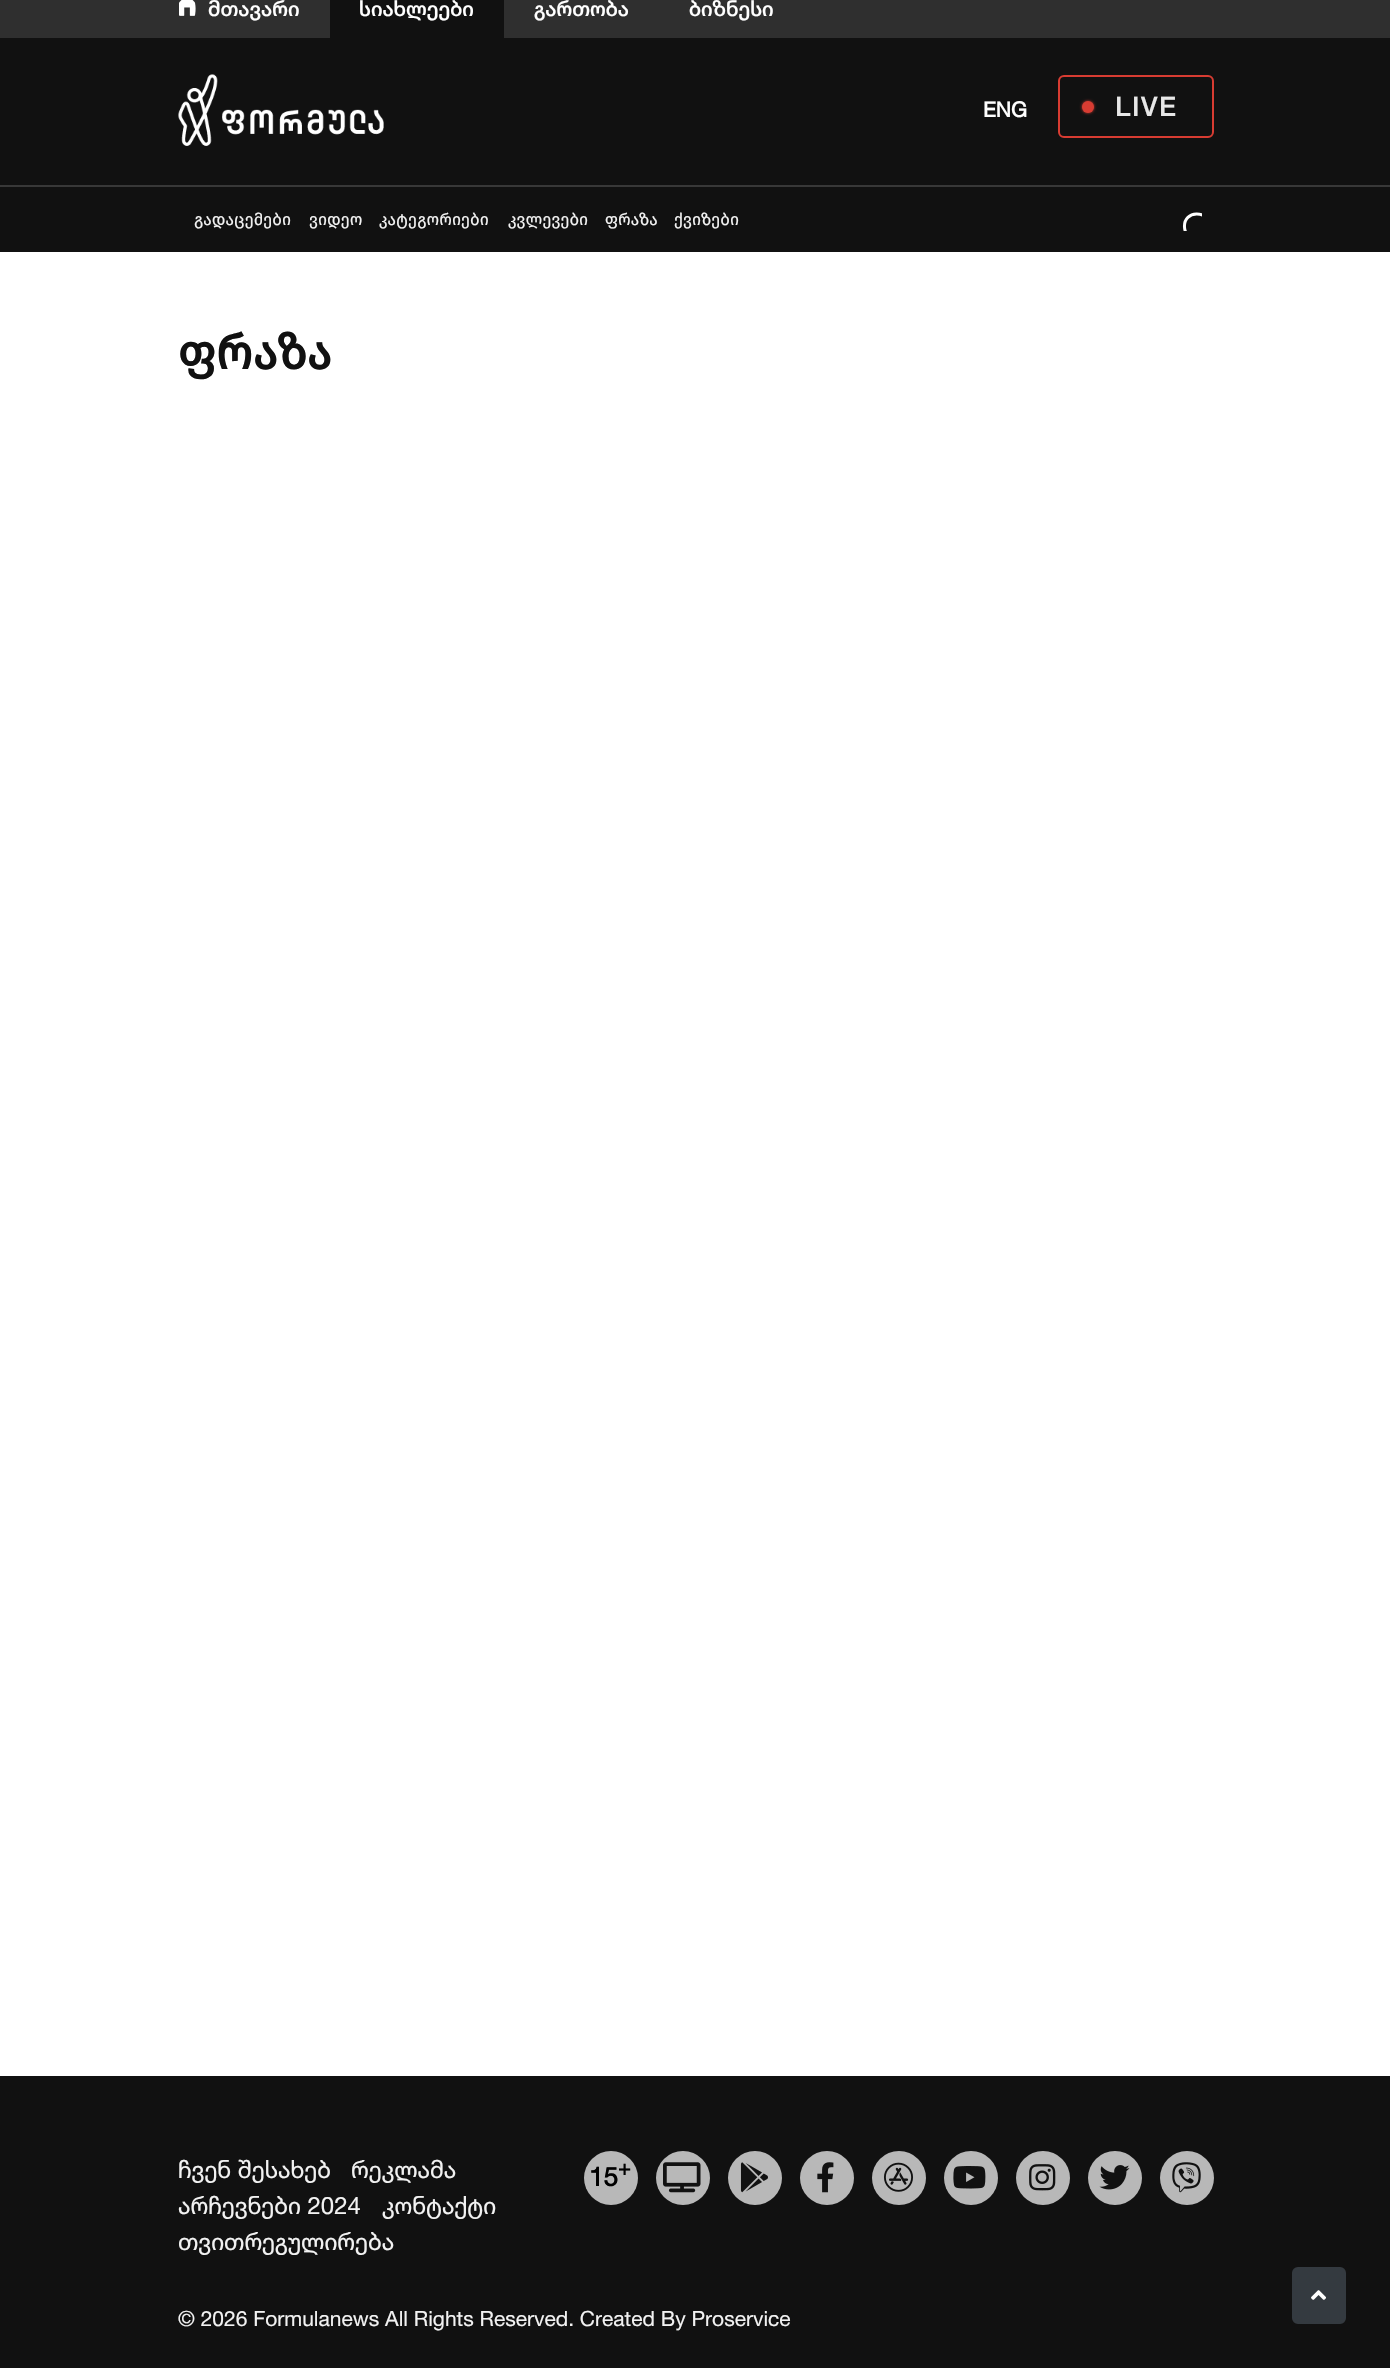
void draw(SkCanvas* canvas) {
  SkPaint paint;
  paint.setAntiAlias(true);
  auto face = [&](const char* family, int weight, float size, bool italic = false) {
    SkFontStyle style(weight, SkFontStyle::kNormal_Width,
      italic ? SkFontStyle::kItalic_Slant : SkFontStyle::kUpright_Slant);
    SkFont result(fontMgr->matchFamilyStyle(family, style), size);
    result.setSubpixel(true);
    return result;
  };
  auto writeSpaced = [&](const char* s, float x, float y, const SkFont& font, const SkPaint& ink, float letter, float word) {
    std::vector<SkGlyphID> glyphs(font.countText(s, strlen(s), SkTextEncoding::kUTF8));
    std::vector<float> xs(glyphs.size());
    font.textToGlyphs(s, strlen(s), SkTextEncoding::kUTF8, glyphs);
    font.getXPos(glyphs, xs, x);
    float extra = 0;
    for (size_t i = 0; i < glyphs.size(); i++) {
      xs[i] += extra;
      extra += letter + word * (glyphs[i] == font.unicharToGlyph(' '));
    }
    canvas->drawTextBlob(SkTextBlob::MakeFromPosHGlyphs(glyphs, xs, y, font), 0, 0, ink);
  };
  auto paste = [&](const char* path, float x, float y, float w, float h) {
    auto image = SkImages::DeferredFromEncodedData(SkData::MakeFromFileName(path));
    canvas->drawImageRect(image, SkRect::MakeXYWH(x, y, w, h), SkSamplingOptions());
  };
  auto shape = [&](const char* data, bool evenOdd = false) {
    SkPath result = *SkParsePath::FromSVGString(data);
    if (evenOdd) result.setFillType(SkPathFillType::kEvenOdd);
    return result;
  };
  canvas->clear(0xffffffff);
  paint.setColor(0xff2f2f2f);
  canvas->drawRect(SkRect::MakeXYWH(0, 0, 1390, 38), paint);
  paste("img/1.png", 179, 0, 17, 16);
  paint.setColor(0xff111111);
  canvas->drawRect(SkRect::MakeXYWH(330, 0, 174, 38), paint);
  canvas->drawRect(SkRect::MakeXYWH(0, 38, 1390, 214), paint);
  paste("img/2.png", 178, 74, 206, 72);
  paint.setStroke(true);
  paint.setStrokeWidth(2);
  paint.setColor(0xffd83c32);
  canvas->drawRoundRect(SkRect::MakeXYWH(1059, 76, 154, 61), 5, 5, paint);
  paint.setStroke(false);
  paint.setMaskFilter(SkMaskFilter::MakeBlur(kNormal_SkBlurStyle, 1.5f));
  canvas->drawRoundRect(SkRect::MakeXYWH(1082, 101, 12, 12), 6, 6, paint);
  paint.setMaskFilter(nullptr);
  canvas->drawCircle(1088, 107, 6, paint);
  paint.setColor(0xff383838);
  canvas->drawRect(SkRect::MakeXYWH(0, 185, 1390, 2), paint);
  canvas->save();
  canvas->clipRect(SkRect::MakeXYWH(1178, 207, 24, 24));
  paint.setStroke(true);
  paint.setStrokeWidth(3);
  paint.setStrokeCap(SkPaint::kRound_Cap);
  paint.setStrokeJoin(SkPaint::kRound_Join);
  paint.setColor(0xffffffff);
  canvas->drawPath(shape("M1209 226C1209 242 1185 242.5 1184.5 227C1183.5 210 1209 209.5 1209 226Z"), paint);
  canvas->restore();
  paint.setStroke(false);
  paint.setColor(0xff111111);
  canvas->drawRect(SkRect::MakeXYWH(0, 2076, 1390, 292), paint);
  paint.setColor(0xffb8b8b8);
  canvas->drawCircle(611, 2178, 27, paint);
  canvas->drawCircle(683, 2178, 27, paint);
  paste("img/3.png", 663, 2162, 38, 31);
  canvas->drawCircle(755, 2178, 27, paint);
  paste("img/4.png", 740, 2162, 28, 31);
  canvas->drawCircle(827, 2178, 27, paint);
  paste("img/5.png", 817, 2162, 17, 31);
  canvas->drawCircle(899, 2178, 27, paint);
  paste("img/6.png", 884, 2162, 29, 30);
  canvas->drawCircle(971, 2178, 27, paint);
  paste("img/7.png", 953, 2166, 33, 23);
  canvas->drawCircle(1043, 2178, 27, paint);
  paste("img/8.png", 1029, 2164, 27, 27);
  canvas->drawCircle(1115, 2178, 27, paint);
  paste("img/9.png", 1099, 2165, 31, 25);
  canvas->drawCircle(1187, 2178, 27, paint);
  paste("img/10.png", 1172, 2162, 29, 31);
  paint.setColor(0xff343a40);
  canvas->drawRoundRect(SkRect::MakeXYWH(1293, 2268, 52, 55), 5, 5, paint);
  paint.setStroke(true);
  paint.setStrokeWidth(2);
  paint.setStrokeCap(SkPaint::kButt_Cap);
  paint.setStrokeJoin(SkPaint::kMiter_Join);
  canvas->drawRoundRect(SkRect::MakeXYWH(1293, 2268, 52, 55), 5, 5, paint);
  paste("img/11.png", 1311, 2290, 15, 10);
  auto f0 = face("Helvetica Neue", 500, 21);
  paint.setStroke(false);
  paint.setColor(0xffffffff);
  {
    const struct { const char* s; float x, y; } items[] = {
      {"მთავარი", 208, 16},
      {"სიახლეები", 359, 16},
      {"გართობა", 534, 16},
      {"ბიზნესი", 689, 16},
    };
    for (auto [s, x, y] : items) {
      canvas->drawString(s, x, y, f0, paint);
    }
  }
  auto f1 = face("Helvetica Neue", 700, 21);
  canvas->drawString("ENG", 983, 117, f1, paint);
  auto f2 = face("Helvetica Neue", 500, 27);
  paint.setColor(0xffe7e7e7);
  writeSpaced("LIVE", 1115, 116, f2, paint, 1.5f, 0);
  auto f3 = face("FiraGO", 400, 16.5f);
  paint.setColor(0xfff2f2f2);
  {
    const struct { const char* s; float x, y; } items[] = {
      {"გადაცემები", 194, 225},
      {"ვიდეო", 309, 225},
      {"კატეგორიები", 379, 225},
      {"კვლევები", 508, 225},
      {"ფრაზა", 605, 225},
      {"ქვიზები", 674, 225},
    };
    for (auto [s, x, y] : items) {
      canvas->drawString(s, x, y, f3, paint);
    }
  }
  auto f4 = face("FiraGO", 700, 48);
  paint.setColor(0xff111111);
  canvas->drawString("ფრაზა", 178, 369, f4, paint);
  auto f5 = face("Helvetica Neue", 400, 24);
  paint.setColor(0xfff2f2f2);
  {
    const struct { const char* s; float x, y; } items[] = {
      {"ჩვენ შესახებ", 178, 2178},
      {"რეკლამა", 351, 2178},
      {"არჩევნები 2024", 178, 2214},
      {"კონტაქტი", 382, 2214},
      {"თვითრეგულირება", 178, 2250},
    };
    for (auto [s, x, y] : items) {
      canvas->drawString(s, x, y, f5, paint);
    }
  }
  auto f6 = face("Helvetica Neue", 700, 26);
  paint.setColor(0xff000000);
  canvas->drawString("15", 589, 2186, f6, paint);
  canvas->drawString("+", 618, 2175, f1, paint);
  auto f7 = face("Helvetica Neue", 400, 21);
  paint.setColor(0xfff2f2f2);
  canvas->drawString("© 2026 Formulanews All Rights Reserved. Created By Proservice", 178, 2326, f7, paint);
}
